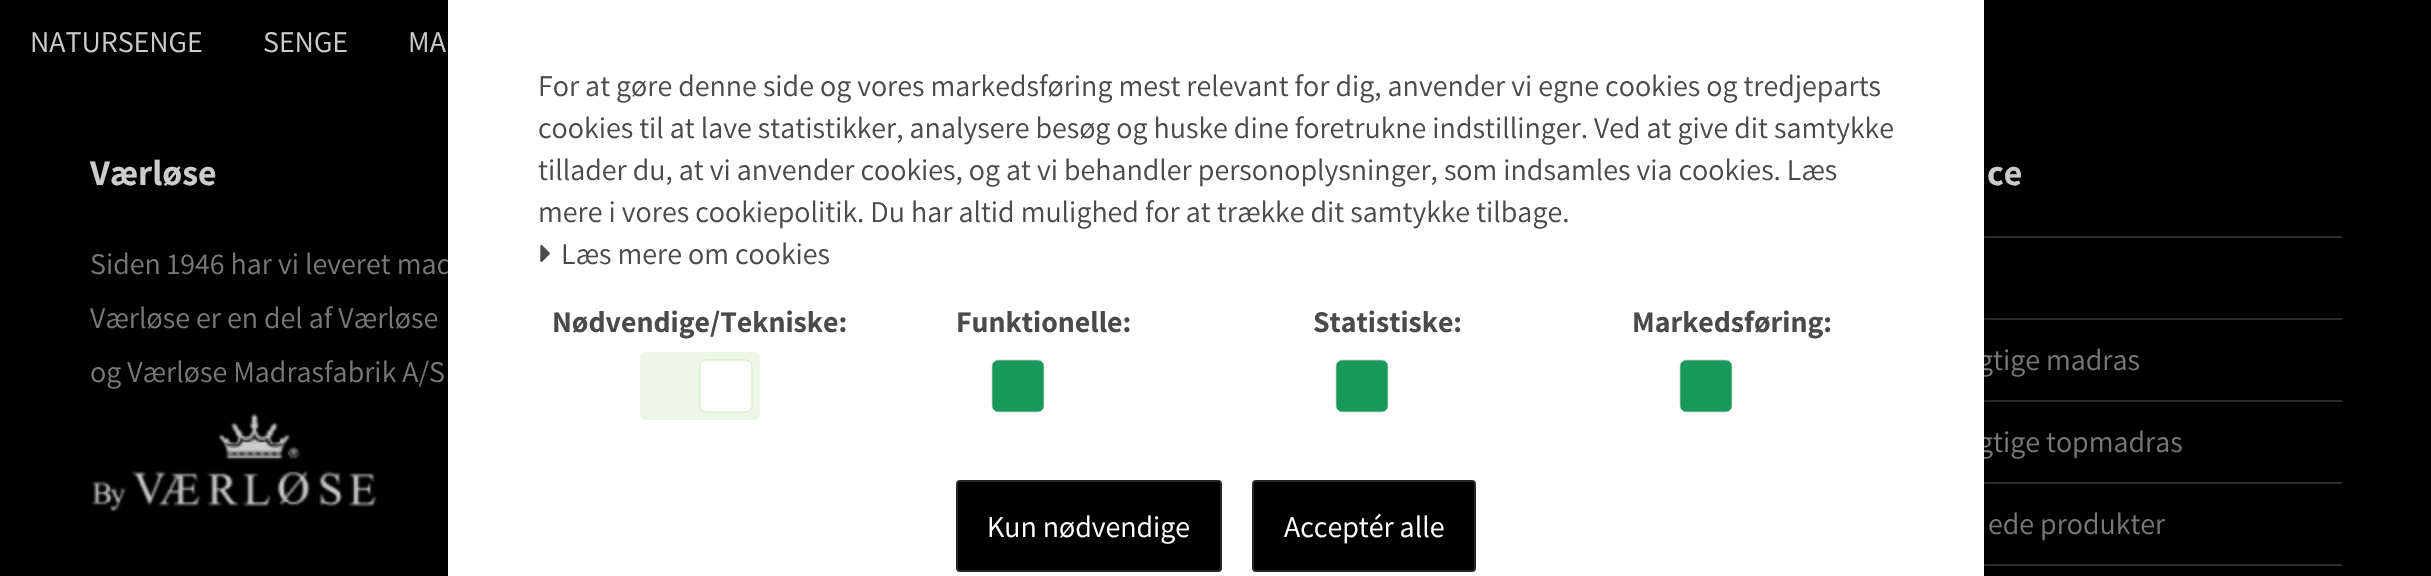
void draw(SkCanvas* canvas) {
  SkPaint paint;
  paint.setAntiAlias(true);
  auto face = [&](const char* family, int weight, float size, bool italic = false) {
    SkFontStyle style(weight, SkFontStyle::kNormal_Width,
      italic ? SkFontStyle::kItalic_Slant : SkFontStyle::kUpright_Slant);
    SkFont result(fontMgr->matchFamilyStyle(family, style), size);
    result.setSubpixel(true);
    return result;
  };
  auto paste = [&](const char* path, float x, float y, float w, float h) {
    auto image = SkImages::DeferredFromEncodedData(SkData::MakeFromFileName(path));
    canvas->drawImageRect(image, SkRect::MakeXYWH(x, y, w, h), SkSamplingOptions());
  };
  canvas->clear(0xff000000);
  paste("img/1.png", 91, 413, 286, 99);
  {
    const struct { float x, y, w, h; SkColor color; } items[] = {
      {1984, 236, 358, 2, 0xff2c2c2c},
      {1984, 318, 358, 2, 0xff2c2c2c},
      {1984, 400, 358, 2, 0xff2c2c2c},
      {1984, 482, 358, 2, 0xff2c2c2c},
      {1984, 564, 358, 2, 0xff2c2c2c},
    };
    for (auto [x, y, w, h, color] : items) {
      paint.setColor(color);
      canvas->drawRect(SkRect::MakeXYWH(x, y, w, h), paint);
    }
  }
  paint.setColor(0x3b000000);
  paint.setMaskFilter(SkMaskFilter::MakeBlur(kNormal_SkBlurStyle, 6));
  canvas->drawRoundRect(SkRect::MakeXYWH(448, -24, 1536, 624), 6, 6, paint);
  paint.setMaskFilter(nullptr);
  paint.setColor(0x29000000);
  paint.setMaskFilter(SkMaskFilter::MakeBlur(kNormal_SkBlurStyle, 6));
  canvas->drawRoundRect(SkRect::MakeXYWH(448, -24, 1536, 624), 6, 6, paint);
  paint.setMaskFilter(nullptr);
  auto f0 = face("Assistant", 400, 30);
  paint.setColor(0xffcccccc);
  {
    const struct { const char* s; float x, y; } items[] = {
      {"NATURSENGE", 30, 52},
      {"SENGE", 263, 52},
      {"MA", 408, 52},
    };
    for (auto [s, x, y] : items) {
      canvas->drawString(s, x, y, f0, paint);
    }
  }
  auto f1 = face("Assistant", 700, 36);
  canvas->drawString("Værløse", 90, 185, f1, paint);
  paint.setColor(0xff787878);
  {
    const struct { const char* s; float x, y; } items[] = {
      {"Siden 1946 har vi leveret mad", 90, 274},
      {"Værløse er en del af Værløse", 90, 328},
      {"og Værløse Madrasfabrik A/S", 90, 382},
    };
    for (auto [s, x, y] : items) {
      canvas->drawString(s, x, y, f0, paint);
    }
  }
  paint.setColor(0xffcccccc);
  canvas->drawString("ce", 1987, 185, f1, paint);
  paint.setColor(0xff787878);
  {
    const struct { const char* s; float x, y; } items[] = {
      {"gtige madras", 1978, 370},
      {"gtige topmadras", 1978, 452},
      {"ede produkter", 1988, 534},
    };
    for (auto [s, x, y] : items) {
      canvas->drawString(s, x, y, f0, paint);
    }
  }
  paint.setColor(0xffffffff);
  canvas->drawRect(SkRect::MakeXYWH(448, 0, 1536, 576), paint);
  paint.setColor(0xff4a4a4a);
  {
    const struct { const char* s; float x, y; } items[] = {
      {"For at gøre denne side og vores markedsføring mest relevant for dig, anvender vi egne cookies og tredjeparts", 538, 96},
      {"cookies til at lave statistikker, analysere besøg og huske dine foretrukne indstillinger. Ved at give dit samtykke", 538, 138},
      {"tillader du, at vi anvender cookies, og at vi behandler personoplysninger, som indsamles via cookies. Læs", 538, 180},
      {"mere i vores cookiepolitik. Du har altid mulighed for at trække dit samtykke tilbage.", 538, 222},
    };
    for (auto [s, x, y] : items) {
      canvas->drawString(s, x, y, f0, paint);
    }
  }
  paste("img/2.png", 540, 244, 10, 18);
  canvas->drawString("Læs mere om cookies", 561, 264, f0, paint);
  auto f2 = face("Assistant", 700, 30);
  canvas->drawString("Nødvendige/Tekniske:", 552, 332, f2, paint);
  paint.setColor(0xffecf7e8);
  canvas->drawRoundRect(SkRect::MakeXYWH(640, 352, 120, 68), 6, 6, paint);
  paint.setStroke(true);
  paint.setStrokeWidth(0.4f);
  paint.setColor(0xffb3dea5);
  canvas->drawRoundRect(SkRect::MakeXYWH(700.2f, 360.2f, 51.6f, 51.6f), 5.8f, 5.8f, paint);
  paint.setStroke(false);
  paint.setColor(0xffffffff);
  canvas->drawRoundRect(SkRect::MakeXYWH(700.2f, 360.2f, 51.6f, 51.6f), 5.8f, 5.8f, paint);
  paint.setStroke(true);
  paint.setColor(0xffb3dea5);
  canvas->drawRoundRect(SkRect::MakeXYWH(700.2f, 360.2f, 51.6f, 51.6f), 5.8f, 5.8f, paint);
  paint.setStroke(false);
  paint.setColor(0xff4a4a4a);
  canvas->drawString("Funktionelle:", 956, 332, f2, paint);
  paint.setStroke(true);
  paint.setColor(0xffb3b3b3);
  canvas->drawRoundRect(SkRect::MakeXYWH(992.2f, 360.2f, 51.6f, 51.6f), 5.8f, 5.8f, paint);
  paint.setStroke(false);
  paint.setColor(0xff17995a);
  canvas->drawRoundRect(SkRect::MakeXYWH(992.2f, 360.2f, 51.6f, 51.6f), 5.8f, 5.8f, paint);
  paint.setStroke(true);
  paint.setColor(0xffb3b3b3);
  canvas->drawRoundRect(SkRect::MakeXYWH(992.2f, 360.2f, 51.6f, 51.6f), 5.8f, 5.8f, paint);
  paint.setStroke(false);
  paint.setColor(0xff4a4a4a);
  canvas->drawString("Statistiske:", 1313, 332, f2, paint);
  paint.setStroke(true);
  paint.setColor(0xffb3b3b3);
  canvas->drawRoundRect(SkRect::MakeXYWH(1336.2f, 360.2f, 51.6f, 51.6f), 5.8f, 5.8f, paint);
  paint.setStroke(false);
  paint.setColor(0xff17995a);
  canvas->drawRoundRect(SkRect::MakeXYWH(1336.2f, 360.2f, 51.6f, 51.6f), 5.8f, 5.8f, paint);
  paint.setStroke(true);
  paint.setColor(0xffb3b3b3);
  canvas->drawRoundRect(SkRect::MakeXYWH(1336.2f, 360.2f, 51.6f, 51.6f), 5.8f, 5.8f, paint);
  paint.setStroke(false);
  paint.setColor(0xff4a4a4a);
  canvas->drawString("Markedsføring:", 1632, 332, f2, paint);
  paint.setStroke(true);
  paint.setColor(0xffb3b3b3);
  canvas->drawRoundRect(SkRect::MakeXYWH(1680.2f, 360.2f, 51.6f, 51.6f), 5.8f, 5.8f, paint);
  paint.setStroke(false);
  paint.setColor(0xff17995a);
  canvas->drawRoundRect(SkRect::MakeXYWH(1680.2f, 360.2f, 51.6f, 51.6f), 5.8f, 5.8f, paint);
  paint.setStroke(true);
  paint.setColor(0xffb3b3b3);
  canvas->drawRoundRect(SkRect::MakeXYWH(1680.2f, 360.2f, 51.6f, 51.6f), 5.8f, 5.8f, paint);
  paint.setStroke(false);
  paint.setColor(0xff000000);
  canvas->drawRoundRect(SkRect::MakeXYWH(957, 481, 264, 90), 3, 3, paint);
  paint.setStroke(true);
  paint.setStrokeWidth(2);
  paint.setColor(0xff262626);
  canvas->drawRoundRect(SkRect::MakeXYWH(957, 481, 264, 90), 3, 3, paint);
  paint.setStroke(false);
  paint.setColor(0xffffffff);
  canvas->drawString("Kun nødvendige", 987, 537, f0, paint);
  paint.setColor(0xff000000);
  canvas->drawRoundRect(SkRect::MakeXYWH(1253, 481, 222, 90), 3, 3, paint);
  paint.setStroke(true);
  paint.setColor(0xff262626);
  canvas->drawRoundRect(SkRect::MakeXYWH(1253, 481, 222, 90), 3, 3, paint);
  paint.setStroke(false);
  paint.setColor(0xffffffff);
  canvas->drawString("Acceptér alle", 1284, 537, f0, paint);
}
